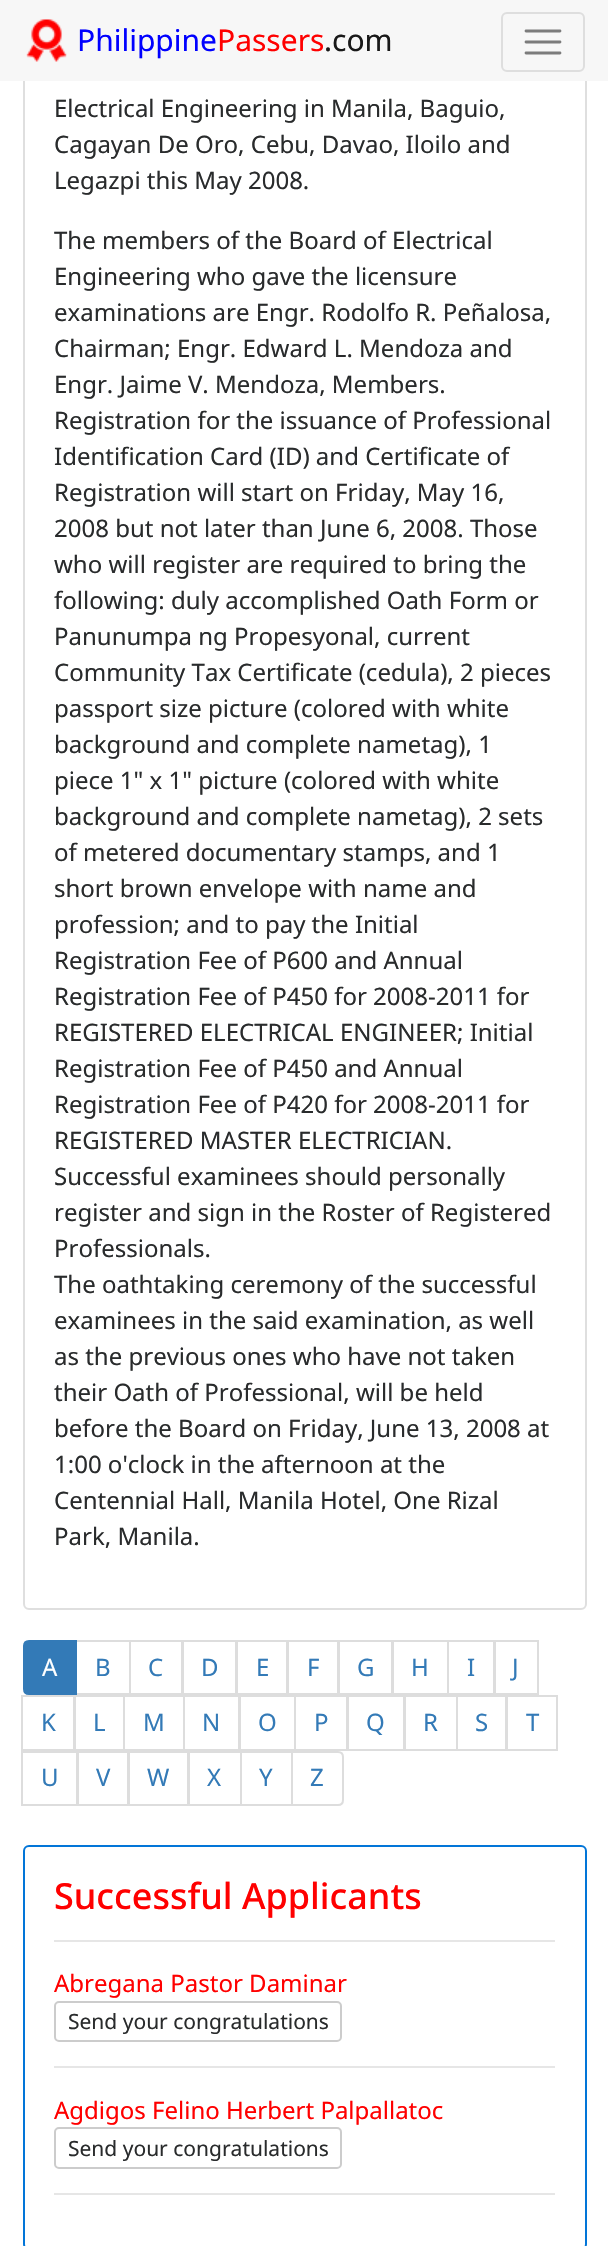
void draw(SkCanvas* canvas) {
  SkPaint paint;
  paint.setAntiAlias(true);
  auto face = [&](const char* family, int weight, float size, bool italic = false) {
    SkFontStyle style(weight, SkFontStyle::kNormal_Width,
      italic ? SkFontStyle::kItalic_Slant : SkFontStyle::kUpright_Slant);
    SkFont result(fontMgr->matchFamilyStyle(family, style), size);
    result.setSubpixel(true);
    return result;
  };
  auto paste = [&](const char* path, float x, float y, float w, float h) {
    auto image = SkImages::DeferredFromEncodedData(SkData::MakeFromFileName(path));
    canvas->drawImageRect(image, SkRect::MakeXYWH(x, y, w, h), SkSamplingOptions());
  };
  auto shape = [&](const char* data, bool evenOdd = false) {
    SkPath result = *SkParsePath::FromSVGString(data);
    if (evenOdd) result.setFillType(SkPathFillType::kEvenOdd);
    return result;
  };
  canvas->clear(0xffffffff);
  paint.setStroke(true);
  paint.setStrokeWidth(2);
  paint.setColor(0xffdfdfdf);
  canvas->drawRoundRect(SkRect::MakeXYWH(24, -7, 562, 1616), 5, 5, paint);
  paint.setStroke(false);
  paint.setColor(0xfff7f7f7);
  canvas->drawRect(SkRect::MakeXYWH(0, 0, 608, 81), paint);
  paste("img/1.png", 26, 19, 41, 43);
  paint.setStroke(true);
  paint.setColor(0xffdedede);
  canvas->drawRoundRect(SkRect::MakeXYWH(502, 13, 82, 58), 5, 5, paint);
  paint.setStrokeWidth(2.8f);
  paint.setStrokeCap(SkPaint::kRound_Cap);
  paint.setColor(0xff7c7c7c);
  canvas->drawPath(shape("M526 31H560M526 42H560M526 53H560"), paint);
  paint.setStrokeWidth(2);
  paint.setStrokeCap(SkPaint::kButt_Cap);
  paint.setColor(0xffdddddd);
  canvas->drawRect(SkRect::MakeXYWH(76, 1641, 54, 53), paint);
  paint.setStroke(false);
  paint.setColor(0xff337ab7);
  canvas->drawPath(shape("M29 1641H76V1694H29C26 1694 24 1692 24 1689V1646C24 1643 26 1641 29 1641Z"), paint);
  paint.setStroke(true);
  canvas->drawPath(shape("M29 1641H76V1694H29C26 1694 24 1692 24 1689V1646C24 1643 26 1641 29 1641Z"), paint);
  paint.setColor(0xffdddddd);
  canvas->drawRect(SkRect::MakeXYWH(130, 1641, 52, 53), paint);
  canvas->drawRect(SkRect::MakeXYWH(183, 1641, 53, 53), paint);
  canvas->drawRect(SkRect::MakeXYWH(237, 1641, 50, 53), paint);
  canvas->drawRect(SkRect::MakeXYWH(288, 1641, 50, 53), paint);
  canvas->drawRect(SkRect::MakeXYWH(339, 1641, 53, 53), paint);
  canvas->drawRect(SkRect::MakeXYWH(393, 1641, 55, 53), paint);
  canvas->drawRect(SkRect::MakeXYWH(448, 1641, 46, 53), paint);
  canvas->drawRect(SkRect::MakeXYWH(495, 1641, 43, 53), paint);
  canvas->drawRect(SkRect::MakeXYWH(22, 1696, 52, 54), paint);
  canvas->drawRect(SkRect::MakeXYWH(75, 1696, 49, 54), paint);
  canvas->drawRect(SkRect::MakeXYWH(124, 1696, 60, 54), paint);
  canvas->drawRect(SkRect::MakeXYWH(184, 1696, 55, 54), paint);
  canvas->drawRect(SkRect::MakeXYWH(240, 1696, 55, 54), paint);
  canvas->drawRect(SkRect::MakeXYWH(295, 1696, 52, 54), paint);
  canvas->drawRect(SkRect::MakeXYWH(348, 1696, 56, 54), paint);
  canvas->drawRect(SkRect::MakeXYWH(405, 1696, 52, 54), paint);
  canvas->drawRect(SkRect::MakeXYWH(457, 1696, 49, 54), paint);
  canvas->drawRect(SkRect::MakeXYWH(507, 1696, 50, 54), paint);
  canvas->drawRect(SkRect::MakeXYWH(22, 1752, 55, 53), paint);
  canvas->drawRect(SkRect::MakeXYWH(78, 1752, 50, 53), paint);
  canvas->drawRect(SkRect::MakeXYWH(129, 1752, 59, 53), paint);
  canvas->drawRect(SkRect::MakeXYWH(189, 1752, 52, 53), paint);
  canvas->drawRect(SkRect::MakeXYWH(241, 1752, 51, 53), paint);
  paint.setStroke(false);
  paint.setColor(0xffffffff);
  canvas->drawPath(shape("M292 1752H338C341 1752 343 1754 343 1757V1800C343 1803 341 1805 338 1805H292Z"), paint);
  paint.setStroke(true);
  paint.setColor(0xffdddddd);
  canvas->drawPath(shape("M292 1752H338C341 1752 343 1754 343 1757V1800C343 1803 341 1805 338 1805H292Z"), paint);
  paint.setColor(0xff0275d8);
  canvas->drawRoundRect(SkRect::MakeXYWH(24, 1846, 562, 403), 5, 5, paint);
  paint.setStroke(false);
  paint.setColor(0xffe6e6e6);
  canvas->drawRect(SkRect::MakeXYWH(54, 1940, 501, 2), paint);
  paint.setStroke(true);
  paint.setColor(0xffcccccc);
  canvas->drawRoundRect(SkRect::MakeXYWH(55, 2002, 286, 39), 4, 4, paint);
  paint.setStroke(false);
  paint.setColor(0xffe6e6e6);
  canvas->drawRect(SkRect::MakeXYWH(54, 2066, 501, 2), paint);
  paint.setStroke(true);
  paint.setColor(0xffcccccc);
  canvas->drawRoundRect(SkRect::MakeXYWH(55, 2128, 286, 40), 4, 4, paint);
  paint.setStroke(false);
  paint.setColor(0xffe6e6e6);
  canvas->drawRect(SkRect::MakeXYWH(54, 2193, 501, 2), paint);
  auto f0 = face("Noto Sans", 400, 30);
  paint.setColor(0xff0000ff);
  canvas->drawString("Philippine", 77, 51, f0, paint);
  paint.setColor(0xffff0000);
  canvas->drawString("Passers", 217, 51, f0, paint);
  paint.setColor(0xff191919);
  canvas->drawString(".com", 324, 51, f0, paint);
  auto f1 = face("Noto Sans", 400, 24);
  paint.setColor(0xff292b2c);
  {
    const struct { const char* s; float x, y; } items[] = {
      {"Electrical Engineering in Manila, Baguio,", 54, 117},
      {"Cagayan De Oro, Cebu, Davao, Iloilo and", 54, 153},
      {"Legazpi this May 2008.", 54, 189},
      {"The members of the Board of Electrical", 54, 249},
      {"Engineering who gave the licensure", 54, 285},
      {"examinations are Engr. Rodolfo R. Peñalosa,", 54, 321},
      {"Chairman; Engr. Edward L. Mendoza and", 54, 357},
      {"Engr. Jaime V. Mendoza, Members.", 54, 393},
      {"Registration for the issuance of Professional", 54, 429},
      {"Identification Card (ID) and Certificate of", 54, 465},
      {"Registration will start on Friday, May 16,", 54, 501},
      {"2008 but not later than June 6, 2008. Those", 54, 537},
      {"who will register are required to bring the", 54, 573},
      {"following: duly accomplished Oath Form or", 54, 609},
      {"Panunumpa ng Propesyonal, current", 54, 645},
      {"Community Tax Certificate (cedula), 2 pieces", 54, 681},
      {"passport size picture (colored with white", 54, 717},
      {"background and complete nametag), 1", 54, 753},
      {"piece 1\" x 1\" picture (colored with white", 54, 789},
      {"background and complete nametag), 2 sets", 54, 825},
      {"of metered documentary stamps, and 1", 54, 861},
      {"short brown envelope with name and", 54, 897},
      {"profession; and to pay the Initial", 54, 933},
      {"Registration Fee of P600 and Annual", 54, 969},
      {"Registration Fee of P450 for 2008-2011 for", 54, 1005},
      {"REGISTERED ELECTRICAL ENGINEER; Initial", 54, 1041},
      {"Registration Fee of P450 and Annual", 54, 1077},
      {"Registration Fee of P420 for 2008-2011 for", 54, 1113},
      {"REGISTERED MASTER ELECTRICIAN.", 54, 1149},
      {"Successful examinees should personally", 54, 1185},
      {"register and sign in the Roster of Registered", 54, 1221},
      {"Professionals.", 54, 1257},
      {"The oathtaking ceremony of the successful", 54, 1293},
      {"examinees in the said examination, as well", 54, 1329},
      {"as the previous ones who have not taken", 54, 1365},
      {"their Oath of Professional, will be held", 54, 1401},
      {"before the Board on Friday, June 13, 2008 at", 54, 1437},
      {"1:00 o'clock in the afternoon at the", 54, 1473},
      {"Centennial Hall, Manila Hotel, One Rizal", 54, 1509},
      {"Park, Manila.", 54, 1545},
    };
    for (auto [s, x, y] : items) {
      canvas->drawString(s, x, y, f1, paint);
    }
  }
  paint.setColor(0xffffffff);
  canvas->drawString("A", 42, 1676, f1, paint);
  paint.setColor(0xff337ab7);
  {
    const struct { const char* s; float x, y; } items[] = {
      {"B", 95, 1676},
      {"C", 148, 1676},
      {"D", 201, 1676},
      {"E", 256, 1676},
      {"F", 307, 1676},
      {"G", 357, 1676},
      {"H", 411, 1676},
      {"I", 467, 1676},
      {"J", 512, 1676},
      {"K", 41, 1731},
      {"L", 93, 1731},
      {"M", 143, 1731},
      {"N", 202, 1731},
      {"O", 258, 1731},
      {"P", 314, 1731},
      {"Q", 366, 1731},
      {"R", 423, 1731},
      {"S", 475, 1731},
      {"T", 526, 1731},
      {"U", 41, 1786},
      {"V", 96, 1786},
      {"W", 147, 1786},
      {"X", 207, 1786},
      {"Y", 259, 1786},
      {"Z", 310, 1786},
    };
    for (auto [s, x, y] : items) {
      canvas->drawString(s, x, y, f1, paint);
    }
  }
  auto f2 = face("Noto Sans", 500, 36);
  paint.setColor(0xffff0000);
  canvas->drawString("Successful Applicants", 54, 1909, f2, paint);
  canvas->drawString("Abregana Pastor Daminar", 54, 1992, f1, paint);
  auto f3 = face("Noto Sans", 400, 21);
  paint.setColor(0xff292b2c);
  canvas->drawString("Send your congratulations", 68, 2029, f3, paint);
  paint.setColor(0xffff0000);
  canvas->drawString("Agdigos Felino Herbert Palpallatoc", 54, 2119, f1, paint);
  paint.setColor(0xff292b2c);
  canvas->drawString("Send your congratulations", 68, 2156, f3, paint);
}
